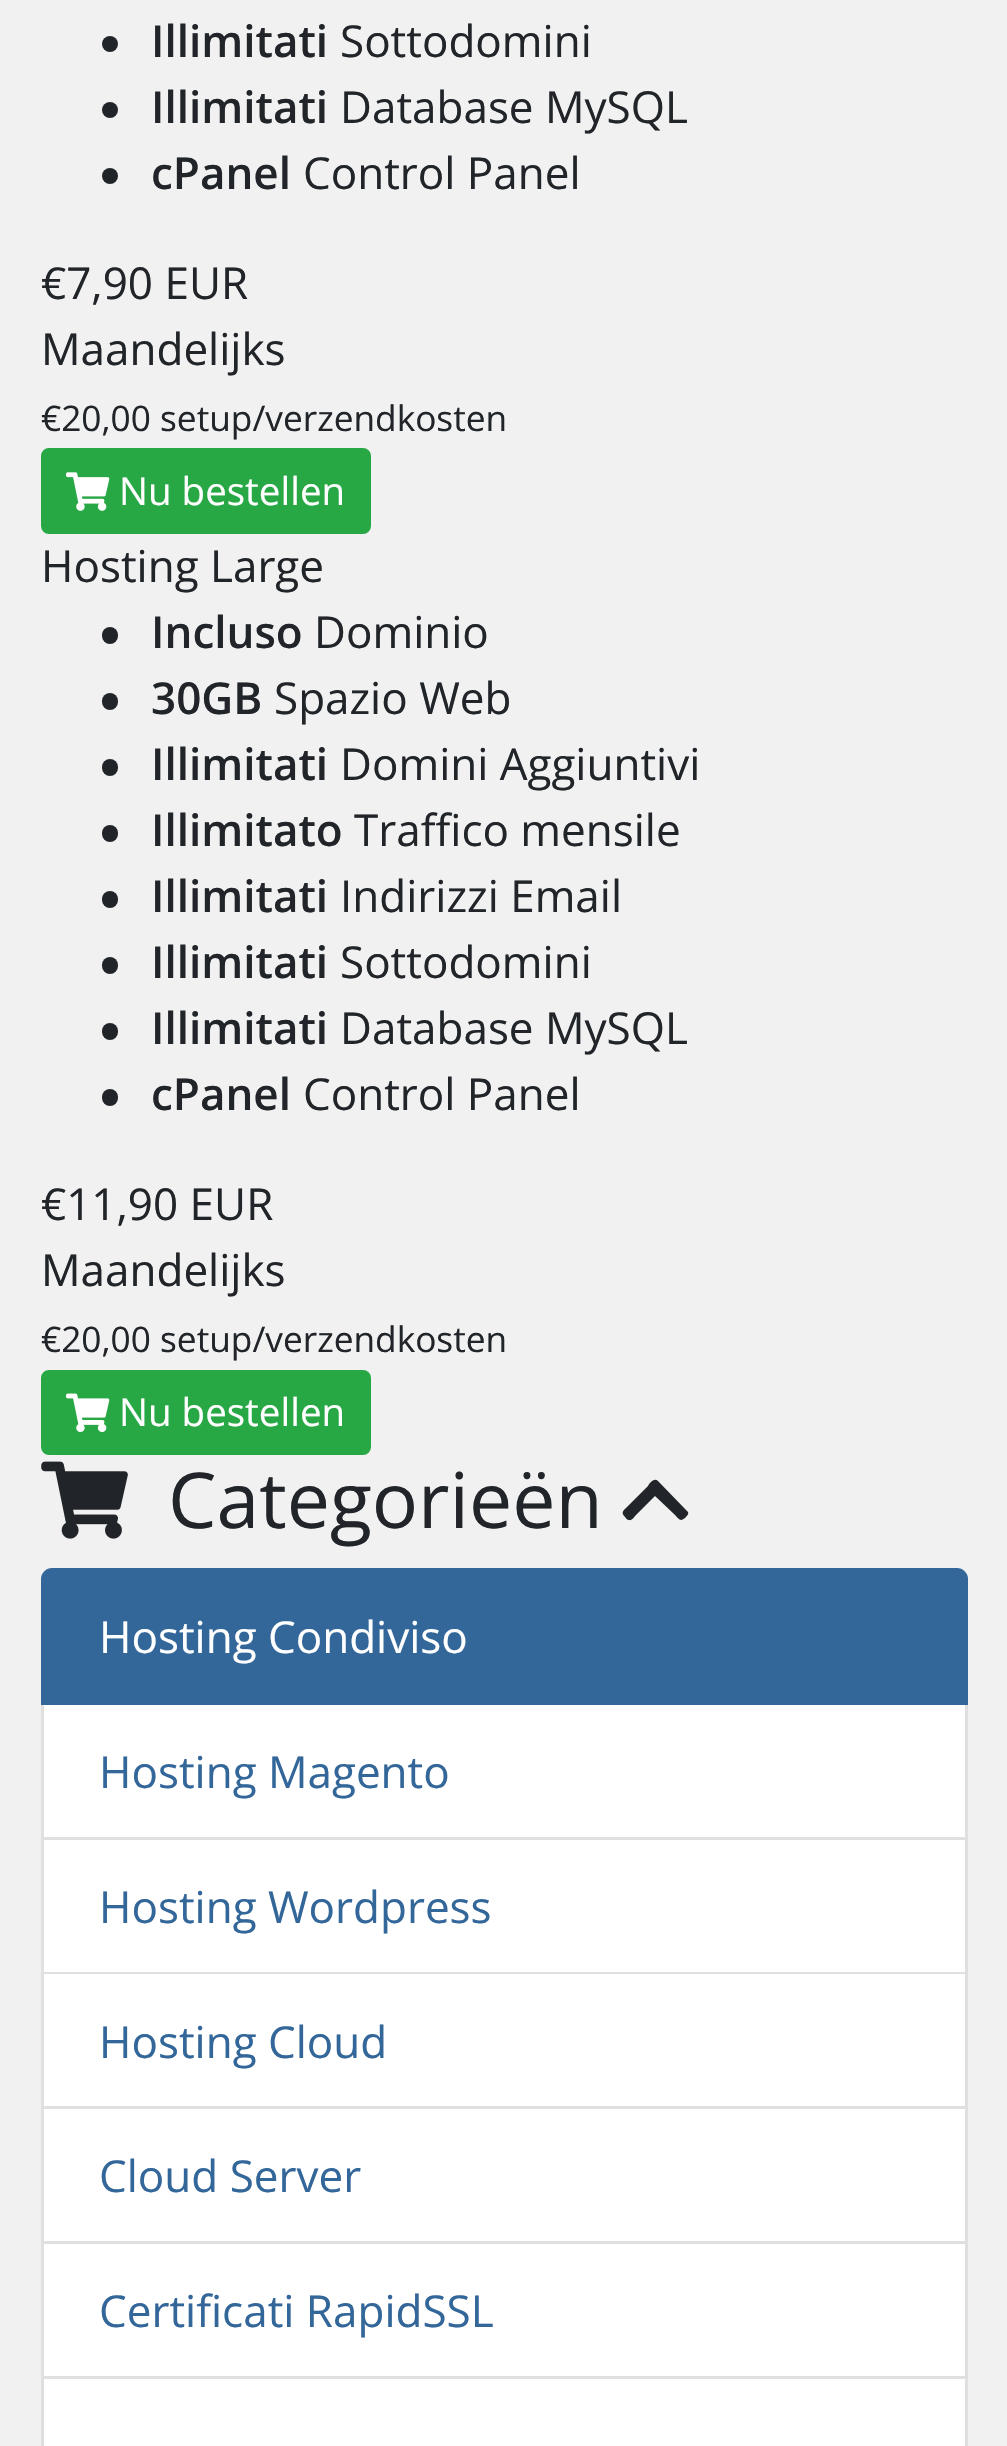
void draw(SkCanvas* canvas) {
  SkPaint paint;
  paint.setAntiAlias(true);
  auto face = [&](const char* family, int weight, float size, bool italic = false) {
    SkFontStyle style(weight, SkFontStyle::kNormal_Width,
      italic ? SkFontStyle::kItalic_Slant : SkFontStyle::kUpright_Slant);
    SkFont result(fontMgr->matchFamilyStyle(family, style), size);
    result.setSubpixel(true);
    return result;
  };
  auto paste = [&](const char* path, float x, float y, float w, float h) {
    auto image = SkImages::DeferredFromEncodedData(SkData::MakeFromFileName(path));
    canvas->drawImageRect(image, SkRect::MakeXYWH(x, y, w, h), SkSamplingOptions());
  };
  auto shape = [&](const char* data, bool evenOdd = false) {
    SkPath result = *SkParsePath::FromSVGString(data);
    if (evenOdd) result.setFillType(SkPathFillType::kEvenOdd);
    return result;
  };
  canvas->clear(0xfff1f1f1);
  paint.setColor(0xff212529);
  canvas->drawCircle(110, 44, 8, paint);
  canvas->drawCircle(110, 110, 8, paint);
  canvas->drawCircle(110, 176, 8, paint);
  paint.setColor(0xff28a745);
  canvas->drawRoundRect(SkRect::MakeXYWH(42.5f, 449.5f, 327, 83), 6.5f, 6.5f, paint);
  paint.setStroke(true);
  paint.setStrokeWidth(3);
  canvas->drawRoundRect(SkRect::MakeXYWH(42.5f, 449.5f, 327, 83), 6.5f, 6.5f, paint);
  paste("img/1.png", 66, 472, 44, 39);
  paint.setStroke(false);
  paint.setColor(0xff212529);
  canvas->drawRoundRect(SkRect::MakeXYWH(102, 627, 16, 17), 8, 8, paint);
  canvas->drawRoundRect(SkRect::MakeXYWH(102, 693, 16, 17), 8, 8, paint);
  canvas->drawRoundRect(SkRect::MakeXYWH(102, 759, 16, 17), 8, 8, paint);
  canvas->drawRoundRect(SkRect::MakeXYWH(102, 825, 16, 17), 8, 8, paint);
  canvas->drawRoundRect(SkRect::MakeXYWH(102, 891, 16, 17), 8, 8, paint);
  canvas->drawRoundRect(SkRect::MakeXYWH(102, 957, 16, 17), 8, 8, paint);
  canvas->drawRoundRect(SkRect::MakeXYWH(102, 1023, 16, 17), 8, 8, paint);
  canvas->drawRoundRect(SkRect::MakeXYWH(102, 1089, 16, 17), 8, 8, paint);
  paint.setColor(0xff28a745);
  canvas->drawRoundRect(SkRect::MakeXYWH(42.5f, 1371.5f, 327, 82), 6.5f, 6.5f, paint);
  paint.setStroke(true);
  canvas->drawRoundRect(SkRect::MakeXYWH(42.5f, 1371.5f, 327, 82), 6.5f, 6.5f, paint);
  paste("img/2.png", 66, 1393, 44, 40);
  paste("img/3.png", 41, 1461, 87, 78);
  paint.setStroke(false);
  paint.setColor(0xff212529);
  canvas->drawPath(shape("M658 1481L687 1511C690 1513 687 1516 685 1518C680 1522 679 1519 675 1515L655 1496L636 1515C634 1517 632 1521 629 1520C627 1520 626 1518 625 1517C620 1512 624 1510 628 1506L648 1486C649 1484 654 1477 658 1481Z"), paint);
  paint.setColor(0xff336699);
  canvas->drawPath(shape("M52 1569.5H957C962 1569.5 966.5 1574 966.5 1579V1703.5H42.5V1579C42.5 1574 47 1569.5 52 1569.5Z"), paint);
  paint.setStroke(true);
  canvas->drawPath(shape("M52 1569.5H957C962 1569.5 966.5 1574 966.5 1579V1703.5H42.5V1579C42.5 1574 47 1569.5 52 1569.5Z"), paint);
  paint.setStroke(false);
  paint.setColor(0xffffffff);
  canvas->drawRect(SkRect::MakeXYWH(41, 1705, 927, 674), paint);
  paint.setColor(0xffdfdfdf);
  canvas->drawPath(shape("M968 1705V1840L965 1837V1705Z"), paint);
  paint.setColor(0x1f000000);
  canvas->drawPath(shape("M968 1840H41L44 1837H965Z"), paint);
  canvas->drawPath(shape("M41 1840V1705H44V1837Z"), paint);
  paint.setColor(0xffdfdfdf);
  canvas->drawPath(shape("M968 1840V1974L965 1972V1840Z"), paint);
  paint.setColor(0x1f000000);
  canvas->drawPath(shape("M968 1974H41L44 1972H965Z"), paint);
  canvas->drawPath(shape("M41 1974V1840H44V1972Z"), paint);
  paint.setColor(0xffdfdfdf);
  canvas->drawPath(shape("M968 1974V2109L965 2106V1974Z"), paint);
  paint.setColor(0x1f000000);
  canvas->drawPath(shape("M968 2109H41L44 2106H965Z"), paint);
  canvas->drawPath(shape("M41 2109V1974H44V2106Z"), paint);
  paint.setColor(0xffdfdfdf);
  canvas->drawPath(shape("M968 2109V2244L965 2241V2109Z"), paint);
  paint.setColor(0x1f000000);
  canvas->drawPath(shape("M968 2244H41L44 2241H965Z"), paint);
  canvas->drawPath(shape("M41 2244V2109H44V2241Z"), paint);
  paint.setColor(0xffdfdfdf);
  canvas->drawPath(shape("M968 2244V2379L965 2376V2244Z"), paint);
  paint.setColor(0x1f000000);
  canvas->drawPath(shape("M968 2379H41L44 2376H965Z"), paint);
  canvas->drawPath(shape("M41 2379V2244H44V2376Z"), paint);
  paint.setColor(0xffffffff);
  canvas->drawRect(SkRect::MakeXYWH(44, 2379, 921, 67), paint);
  paint.setColor(0xffdfdfdf);
  canvas->drawPath(shape("M968 2379V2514L965 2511V2379Z"), paint);
  canvas->drawPath(shape("M41 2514V2379H44V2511Z"), paint);
  auto f0 = face("Open Sans", 600, 44);
  paint.setColor(0xff212529);
  canvas->drawString("Illimitati", 151, 57, f0, paint);
  auto f1 = face("Open Sans", 400, 44);
  canvas->drawString("Sottodomini", 340, 57, f1, paint);
  canvas->drawString("Illimitati", 151, 123, f0, paint);
  canvas->drawString("Database MySQL", 340, 123, f1, paint);
  canvas->drawString("cPanel", 151, 189, f0, paint);
  {
    const struct { const char* s; float x, y; } items[] = {
      {"Control Panel", 303, 189},
      {"€7,90 EUR", 41, 299},
      {"Maandelijks", 41, 365},
    };
    for (auto [s, x, y] : items) {
      canvas->drawString(s, x, y, f1, paint);
    }
  }
  auto f2 = face("Open Sans", 400, 35.25f);
  canvas->drawString("€20,00 setup/verzendkosten", 41, 431, f2, paint);
  auto f3 = face("Open Sans", 400, 38.5f);
  paint.setColor(0xffffffff);
  canvas->drawString("Nu bestellen", 119, 505, f3, paint);
  paint.setColor(0xff212529);
  canvas->drawString("Hosting Large", 41, 582, f1, paint);
  canvas->drawString("Incluso", 151, 648, f0, paint);
  canvas->drawString("Dominio", 314, 648, f1, paint);
  canvas->drawString("30GB", 151, 714, f0, paint);
  canvas->drawString("Spazio Web", 274, 714, f1, paint);
  canvas->drawString("Illimitati", 151, 780, f0, paint);
  canvas->drawString("Domini Aggiuntivi", 340, 780, f1, paint);
  canvas->drawString("Illimitato", 151, 846, f0, paint);
  canvas->drawString("Traffico mensile", 354, 846, f1, paint);
  canvas->drawString("Illimitati", 151, 912, f0, paint);
  canvas->drawString("Indirizzi Email", 340, 912, f1, paint);
  canvas->drawString("Illimitati", 151, 978, f0, paint);
  canvas->drawString("Sottodomini", 340, 978, f1, paint);
  canvas->drawString("Illimitati", 151, 1044, f0, paint);
  canvas->drawString("Database MySQL", 340, 1044, f1, paint);
  canvas->drawString("cPanel", 151, 1110, f0, paint);
  {
    const struct { const char* s; float x, y; } items[] = {
      {"Control Panel", 303, 1110},
      {"€11,90 EUR", 41, 1220},
      {"Maandelijks", 41, 1286},
    };
    for (auto [s, x, y] : items) {
      canvas->drawString(s, x, y, f1, paint);
    }
  }
  canvas->drawString("€20,00 setup/verzendkosten", 41, 1352, f2, paint);
  paint.setColor(0xffffffff);
  canvas->drawString("Nu bestellen", 119, 1426, f3, paint);
  auto f4 = face("Open Sans", 400, 77);
  paint.setColor(0xff212529);
  canvas->drawString("Categorieën", 168, 1528, f4, paint);
  paint.setColor(0xffffffff);
  canvas->drawString("Hosting Condiviso", 99, 1653, f1, paint);
  paint.setColor(0xff336699);
  {
    const struct { const char* s; float x, y; } items[] = {
      {"Hosting Magento", 99, 1788},
      {"Hosting Wordpress", 99, 1923},
      {"Hosting Cloud", 99, 2058},
      {"Cloud Server", 99, 2192},
      {"Certificati RapidSSL", 99, 2327},
    };
    for (auto [s, x, y] : items) {
      canvas->drawString(s, x, y, f1, paint);
    }
  }
}
